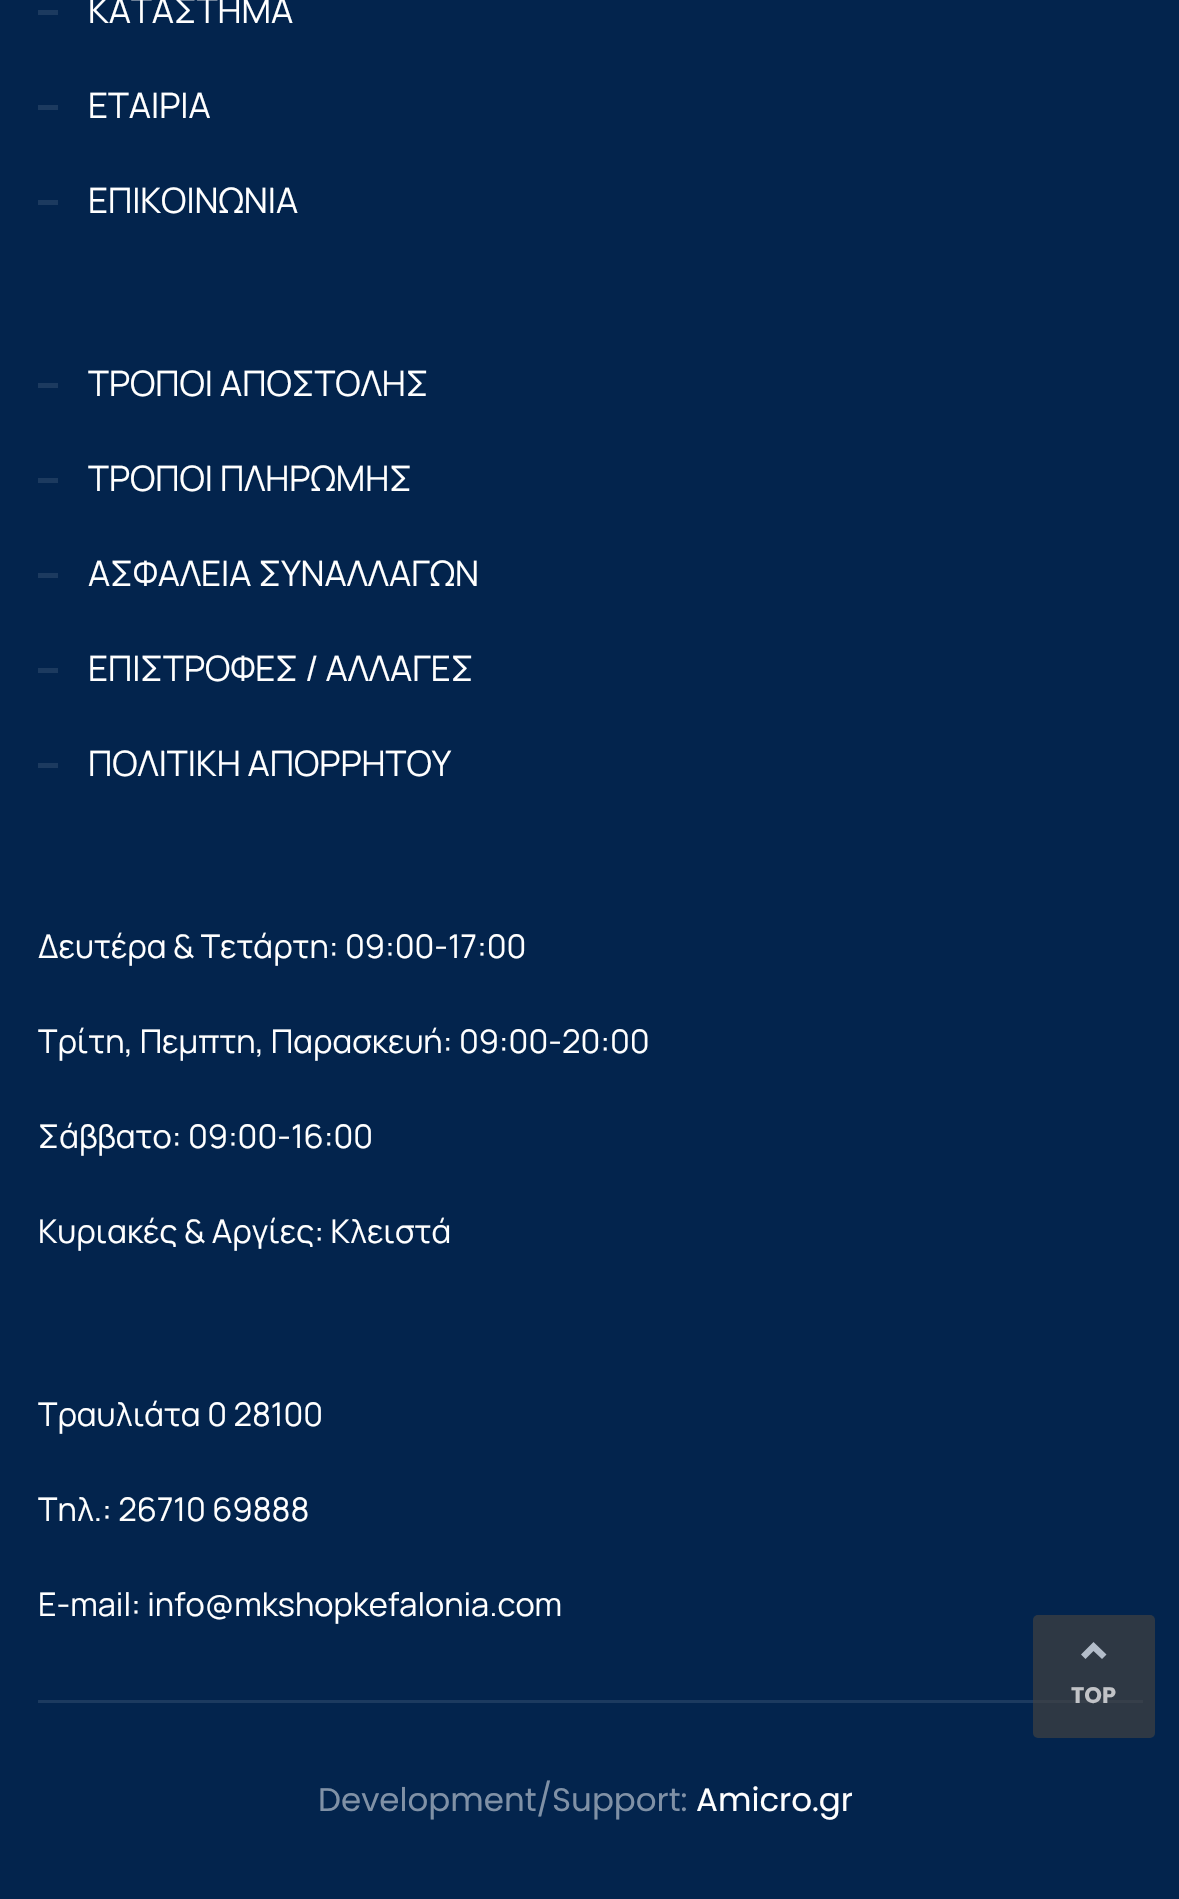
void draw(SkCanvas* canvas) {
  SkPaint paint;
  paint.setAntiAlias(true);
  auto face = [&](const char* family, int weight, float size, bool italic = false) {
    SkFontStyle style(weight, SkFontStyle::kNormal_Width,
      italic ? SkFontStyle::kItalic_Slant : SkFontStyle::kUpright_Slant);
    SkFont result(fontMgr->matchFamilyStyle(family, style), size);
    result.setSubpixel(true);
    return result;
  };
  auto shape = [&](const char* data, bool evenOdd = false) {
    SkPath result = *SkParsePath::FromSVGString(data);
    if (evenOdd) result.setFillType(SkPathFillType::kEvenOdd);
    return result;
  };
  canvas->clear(0xff03244d);
  {
    const struct { float x, y, w, h; SkColor color; } items[] = {
      {38, 10, 20, 5, 0xff1c3a5f},
      {38, 105, 20, 5, 0xff1c3a5f},
      {38, 200, 20, 5, 0xff1c3a5f},
      {38, 383, 20, 5, 0xff1c3a5f},
      {38, 478, 20, 5, 0xff1c3a5f},
      {38, 573, 20, 5, 0xff1c3a5f},
      {38, 668, 20, 5, 0xff1c3a5f},
      {38, 763, 20, 5, 0xff1c3a5f},
      {38, 1700, 1105, 3, 0xff1c3a5f},
    };
    for (auto [x, y, w, h, color] : items) {
      paint.setColor(color);
      canvas->drawRect(SkRect::MakeXYWH(x, y, w, h), paint);
    }
  }
  paint.setColor(0xb3404040);
  canvas->drawRoundRect(SkRect::MakeXYWH(1033, 1615, 122, 123), 5, 5, paint);
  paint.setColor(0xffb3bdca);
  canvas->drawPath(shape("M1093.5 1642L1106.5 1654.5L1102 1659L1093.5 1651L1085.5 1659L1081 1654.5Z"), paint);
  auto f0 = face("Manrope", 400, 35);
  paint.setColor(0xffffffff);
  {
    const struct { const char* s; float x, y; } items[] = {
      {"ΚΑΤΑΣΤΗΜΑ", 88, 23},
      {"ΕΤΑΙΡΙΑ", 88, 118},
      {"ΕΠΙΚΟΙΝΩΝΙΑ", 88, 213},
      {"ΤΡΟΠΟΙ ΑΠΟΣΤΟΛΗΣ", 88, 396},
      {"ΤΡΟΠΟΙ ΠΛΗΡΩΜΗΣ", 88, 491},
      {"ΑΣΦΑΛΕΙΑ ΣΥΝΑΛΛΑΓΩΝ", 88, 586},
      {"ΕΠΙΣΤΡΟΦΕΣ / ΑΛΛΑΓΕΣ", 88, 681},
      {"ΠΟΛΙΤΙΚΗ ΑΠΟΡΡΗΤΟΥ", 88, 776},
    };
    for (auto [s, x, y] : items) {
      canvas->drawString(s, x, y, f0, paint);
    }
  }
  auto f1 = face("Manrope", 400, 32.5f);
  {
    const struct { const char* s; float x, y; } items[] = {
      {"Δευτέρα & Τετάρτη: 09:00-17:00", 38, 958},
      {"Τρίτη, Πεμπτη, Παρασκευή: 09:00-20:00", 38, 1053},
      {"Σάββατο: 09:00-16:00", 38, 1148},
      {"Κυριακές & Αργίες: Κλειστά", 38, 1243},
      {"Τραυλιάτα 0 28100", 38, 1426},
      {"Τηλ.: 26710 69888", 38, 1521},
      {"E-mail: info@mkshopkefalonia.com", 38, 1616},
    };
    for (auto [s, x, y] : items) {
      canvas->drawString(s, x, y, f1, paint);
    }
  }
  auto f2 = face("Poppins", 400, 32.5f);
  paint.setColor(0xff8091a6);
  canvas->drawString("Development/Support:", 318, 1811, f2, paint);
  paint.setColor(0xffffffff);
  canvas->drawString("Amicro.gr", 696, 1811, f2, paint);
  auto f3 = face("Poppins", 700, 22.5f);
  paint.setColor(0xffc1c3c7);
  canvas->drawString("TOP", 1071, 1703, f3, paint);
}
